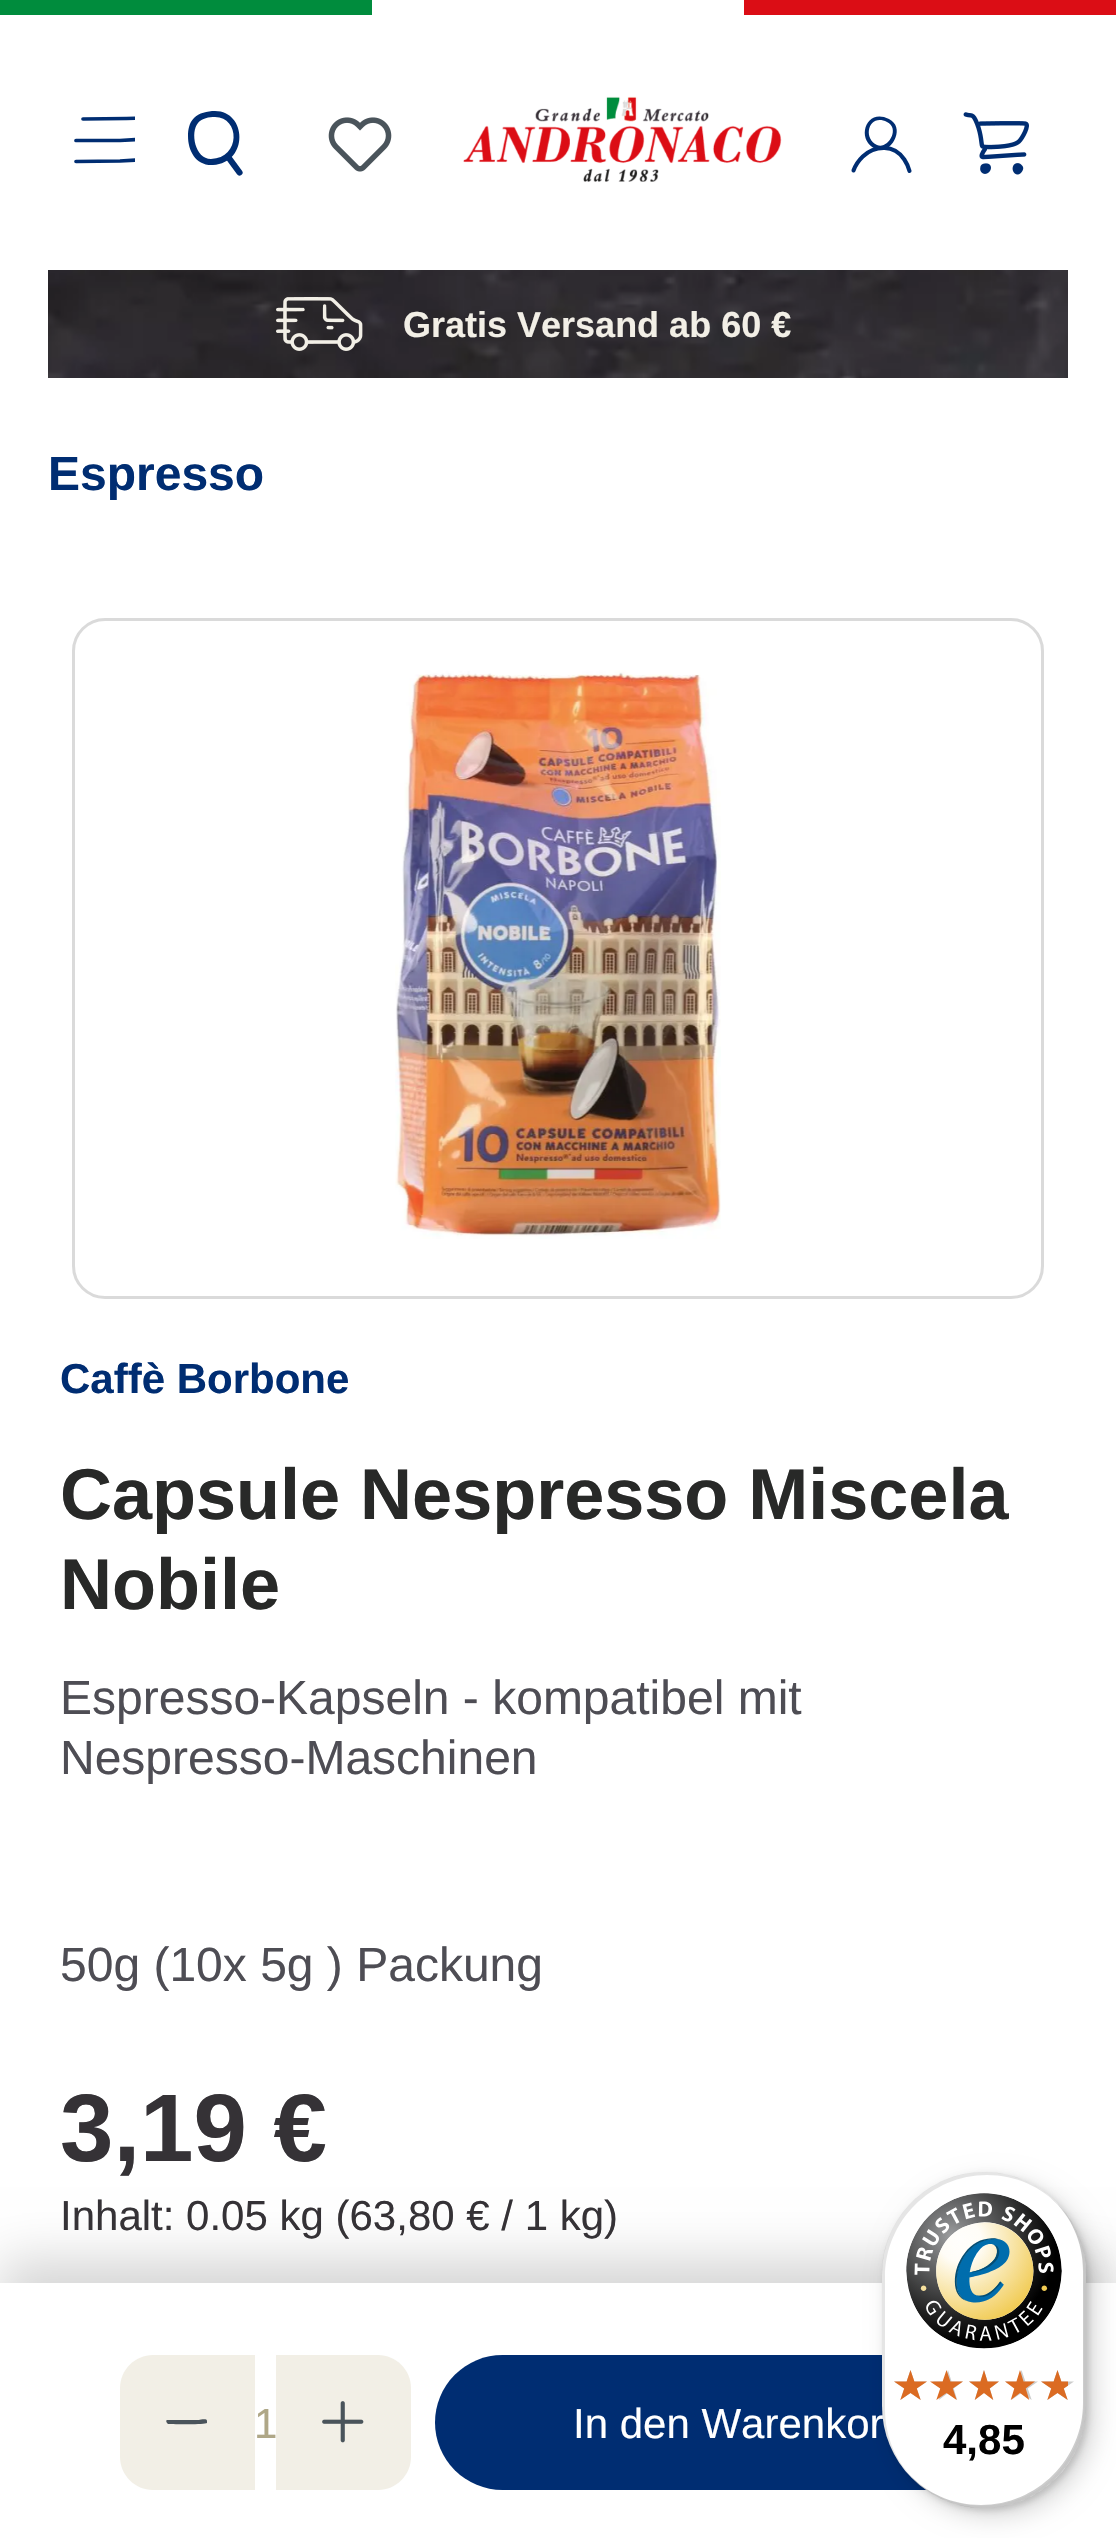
void draw(SkCanvas* canvas) {
  SkPaint paint;
  paint.setAntiAlias(true);
  auto face = [&](const char* family, int weight, float size, bool italic = false) {
    SkFontStyle style(weight, SkFontStyle::kNormal_Width,
      italic ? SkFontStyle::kItalic_Slant : SkFontStyle::kUpright_Slant);
    SkFont result(fontMgr->matchFamilyStyle(family, style), size);
    result.setSubpixel(true);
    return result;
  };
  auto paste = [&](const char* path, float x, float y, float w, float h) {
    auto image = SkImages::DeferredFromEncodedData(SkData::MakeFromFileName(path));
    canvas->drawImageRect(image, SkRect::MakeXYWH(x, y, w, h), SkSamplingOptions());
  };
  auto shape = [&](const char* data, bool evenOdd = false) {
    SkPath result = *SkParsePath::FromSVGString(data);
    if (evenOdd) result.setFillType(SkPathFillType::kEvenOdd);
    return result;
  };
  canvas->clear(0xffffffff);
  paint.setColor(0xff008c3d);
  canvas->drawRect(SkRect::MakeXYWH(0, 0, 372, 15), paint);
  paint.setColor(0xffdb0d15);
  canvas->drawRect(SkRect::MakeXYWH(744, 0, 372, 15), paint);
  canvas->save();
  canvas->clipRect(SkRect::MakeXYWH(69, 111, 66, 66));
  paint.setStroke(true);
  paint.setStrokeWidth(3.7f);
  paint.setStrokeCap(SkPaint::kRound_Cap);
  paint.setColor(0xff002d72);
  canvas->drawPath(shape("M83 119L126.5 118.5L144.5 118M76 140.5H120L138 139.5M76 161.5L120 161L138 160"), paint);
  canvas->restore();
  paint.setStroke(false);
  canvas->drawPath(shape("M215 117C209 117 202 118 198 123C190 132 195 159 211 159C241 158 240 117 215 117M215 111C247 111 249 163 213 165C196 166 188 151 188 136C188 130 189 123 194 118C199 113 207 111 215 111Z"), paint);
  paint.setStroke(true);
  paint.setStrokeWidth(6.2f);
  canvas->drawPath(shape("M228.5 157.5L239.5 172.5"), paint);
  paste("img/1.png", 328, 117, 64, 55);
  paste("img/2.png", 463, 96, 319, 86);
  paint.setStroke(false);
  canvas->drawPath(shape("M887 122C869 113 862 138 877 145C887 150 901 129 887 122M889 119C907 128 890 156 876 149C855 140 866 107 889 119Z"), paint);
  paint.setStroke(true);
  paint.setStrokeWidth(4.1f);
  canvas->drawPath(shape("M853.5 170.5C856 163.5 865.5 147.5 884.5 148C904 148 909.5 171 909.5 171"), paint);
  paste("img/3.png", 963, 112, 66, 63);
  paste("img/4.png", 48, 270, 1020, 108);
  paste("img/5.png", 276, 297, 87, 54);
  paint.setStrokeWidth(3);
  paint.setStrokeCap(SkPaint::kButt_Cap);
  paint.setColor(0xffdadada);
  canvas->drawRoundRect(SkRect::MakeXYWH(73.5f, 619.5f, 969, 678), 31.5f, 31.5f, paint);
  paste("img/6.png", 395, 670, 326, 569);
  paint.setStroke(false);
  paint.setColor(0x29000000);
  paint.setMaskFilter(SkMaskFilter::MakeBlur(kNormal_SkBlurStyle, 24));
  canvas->drawRect(SkRect::MakeXYWH(0, 2259, 1116, 255), paint);
  paint.setMaskFilter(nullptr);
  paint.setColor(0xffffffff);
  canvas->drawRect(SkRect::MakeXYWH(0, 2283, 1116, 255), paint);
  paint.setColor(0xfff2efe6);
  canvas->drawPath(shape("M153 2355H255V2490H153C135 2490 120 2475 120 2457V2388C120 2370 135 2355 153 2355Z"), paint);
  paint.setColor(0xff4a545b);
  canvas->drawPath(shape("M168 2424C173 2424 205 2425 207 2423V2421C207 2418 200 2420 199 2420H167C166 2420 166 2422 167 2423Z", true), paint);
  paint.setColor(0xfff2efe6);
  canvas->drawPath(shape("M276 2355H378C396 2355 411 2370 411 2388V2457C411 2475 396 2490 378 2490H276Z"), paint);
  paste("img/7.png", 322, 2401, 42, 42);
  paint.setColor(0xff002d72);
  canvas->drawRoundRect(SkRect::MakeXYWH(435, 2355, 609, 135), 67.5f, 67.5f, paint);
  paint.setColor(0x26000000);
  paint.setMaskFilter(SkMaskFilter::MakeBlur(kNormal_SkBlurStyle, 12));
  canvas->drawRoundRect(SkRect::MakeXYWH(891, 2181, 204, 336), 102, 102, paint);
  paint.setMaskFilter(nullptr);
  paint.setMaskFilter(SkMaskFilter::MakeBlur(kNormal_SkBlurStyle, 3));
  canvas->drawRoundRect(SkRect::MakeXYWH(885, 2175, 204, 336), 102, 102, paint);
  paint.setMaskFilter(nullptr);
  paint.setColor(0xffffffff);
  canvas->drawRoundRect(SkRect::MakeXYWH(882, 2172, 204, 336), 102, 102, paint);
  paint.setColor(0x1a000000);
  canvas->drawPath(shape("M987 2175C1016 2175 1042 2187 1060 2207C1042 2185 1014 2172 984 2172C928 2172 882 2218 882 2274V2406C882 2436 895 2464 917 2482C897 2464 885 2438 885 2409V2277C885 2221 931 2175 987 2175Z"), paint);
  paint.setColor(0x33000000);
  canvas->drawPath(shape("M908 2473C926 2495 954 2508 984 2508C1040 2508 1086 2462 1086 2406V2274C1086 2244 1073 2216 1051 2198C1071 2216 1083 2242 1083 2271V2403C1083 2459 1037 2505 981 2505C952 2505 926 2493 908 2473Z"), paint);
  paint.setColor(0x33323232);
  canvas->drawPath(shape("M913 2479C931 2497 956 2508 984 2508C1040 2508 1086 2462 1086 2406V2274C1086 2246 1075 2221 1057 2203C1074 2221 1084 2246 1084 2272V2404C1084 2461 1039 2506 982 2506C956 2506 931 2496 913 2479Z"), paint);
  paint.setColor(0x4dffffff);
  canvas->drawPath(shape("M913 2479C931 2497 956 2508 984 2508C1040 2508 1086 2462 1086 2406V2274C1086 2246 1075 2221 1057 2203C1074 2221 1084 2246 1084 2272V2404C1084 2461 1039 2506 982 2506C956 2506 931 2496 913 2479Z"), paint);
  paste("img/8.png", 906, 2193, 156, 156);
  paste("img/9.png", 894, 2370, 33, 30);
  paste("img/10.png", 933, 2370, 30, 30);
  paste("img/10.png", 969, 2370, 30, 30);
  paste("img/9.png", 1005, 2370, 33, 30);
  paste("img/9.png", 1041, 2370, 33, 30);
  paste("img/11.png", 894, 2370, 33, 30);
  paste("img/12.png", 930, 2370, 33, 30);
  paste("img/13.png", 969, 2370, 30, 30);
  paste("img/14.png", 1005, 2370, 30, 30);
  paste("img/15.png", 1041, 2370, 27, 30);
  auto f0 = face("Liberation Sans", 700, 36);
  paint.setColor(0xfff2efe6);
  canvas->drawString("Gratis Versand ab 60 €", 403, 337, f0, paint);
  auto f1 = face("Liberation Sans", 700, 48);
  paint.setColor(0xff002d72);
  canvas->drawString("Espresso", 48, 490, f1, paint);
  auto f2 = face("Liberation Sans", 700, 42);
  canvas->drawString("Caffè Borbone", 60, 1393, f2, paint);
  auto f3 = face("Liberation Sans", 700, 72);
  paint.setColor(0xff282928);
  canvas->drawString("Capsule Nespresso Miscela", 60, 1519, f3, paint);
  canvas->drawString("Nobile", 60, 1609, f3, paint);
  auto f4 = face("Liberation Sans", 400, 48);
  paint.setColor(0xff4e4d54);
  {
    const struct { const char* s; float x, y; } items[] = {
      {"Espresso-Kapseln - kompatibel mit", 60, 1714},
      {"Nespresso-Maschinen", 60, 1774},
      {"50g (10x 5g ) Packung", 60, 1981},
    };
    for (auto [s, x, y] : items) {
      canvas->drawString(s, x, y, f4, paint);
    }
  }
  auto f5 = face("Liberation Sans", 700, 96);
  paint.setColor(0xff353236);
  canvas->drawString("3,19 €", 60, 2161, f5, paint);
  auto f6 = face("Liberation Sans", 400, 42);
  canvas->drawString("Inhalt: 0.05 kg (63,80 € / 1 kg)", 60, 2230, f6, paint);
  paint.setColor(0xffafa787);
  canvas->drawString("1", 254, 2438, f6, paint);
  paint.setColor(0xffffffff);
  canvas->drawString("In den Warenkor", 573, 2438, f6, paint);
  paint.setColor(0xff000000);
  canvas->drawString("4,85", 943, 2454, f2, paint);
}
